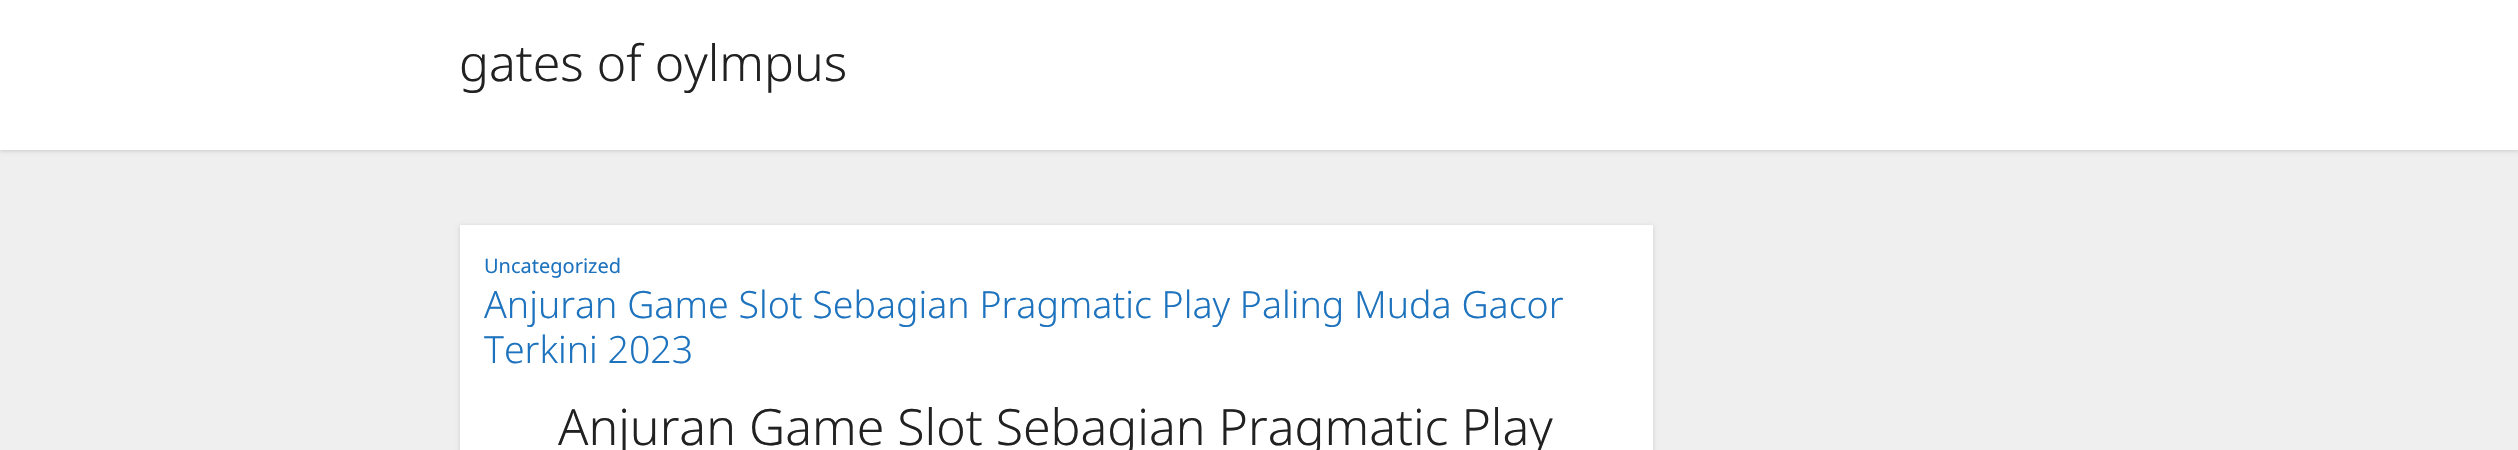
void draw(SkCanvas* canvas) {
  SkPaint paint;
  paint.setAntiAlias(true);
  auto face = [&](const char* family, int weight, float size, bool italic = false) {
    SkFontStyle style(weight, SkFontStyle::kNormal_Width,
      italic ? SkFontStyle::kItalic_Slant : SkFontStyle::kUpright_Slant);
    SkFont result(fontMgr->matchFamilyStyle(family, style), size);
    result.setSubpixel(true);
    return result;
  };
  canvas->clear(0xffefefef);
  paint.setColor(0x26000000);
  paint.setMaskFilter(SkMaskFilter::MakeBlur(kNormal_SkBlurStyle, 2));
  canvas->drawRect(SkRect::MakeXYWH(0, 1, 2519, 150), paint);
  paint.setMaskFilter(nullptr);
  paint.setColor(0xffffffff);
  canvas->drawRect(SkRect::MakeXYWH(0, 0, 2518, 150), paint);
  paint.setColor(0x26000000);
  paint.setMaskFilter(SkMaskFilter::MakeBlur(kNormal_SkBlurStyle, 2));
  canvas->drawRect(SkRect::MakeXYWH(460, 226, 1193, 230), paint);
  paint.setMaskFilter(nullptr);
  paint.setColor(0xffffffff);
  canvas->drawRect(SkRect::MakeXYWH(460, 225, 1193, 225), paint);
  auto f0 = face("Noto Sans", 300, 50);
  paint.setColor(0xff212121);
  canvas->drawString("gates of oylmpus", 459, 81, f0, paint);
  auto f1 = face("Noto Sans", 400, 20);
  paint.setColor(0xff1e73be);
  canvas->drawString("Uncategorized", 484, 273, f1, paint);
  auto f2 = face("Noto Sans", 300, 37.5f);
  canvas->drawString("Anjuran Game Slot Sebagian Pragmatic Play Paling Muda Gacor", 484, 318, f2, paint);
  canvas->drawString("Terkini 2023", 484, 363, f2, paint);
  paint.setColor(0xff212121);
  canvas->drawString("Anjuran Game Slot Sebagian Pragmatic Play", 558, 445, f0, paint);
}
